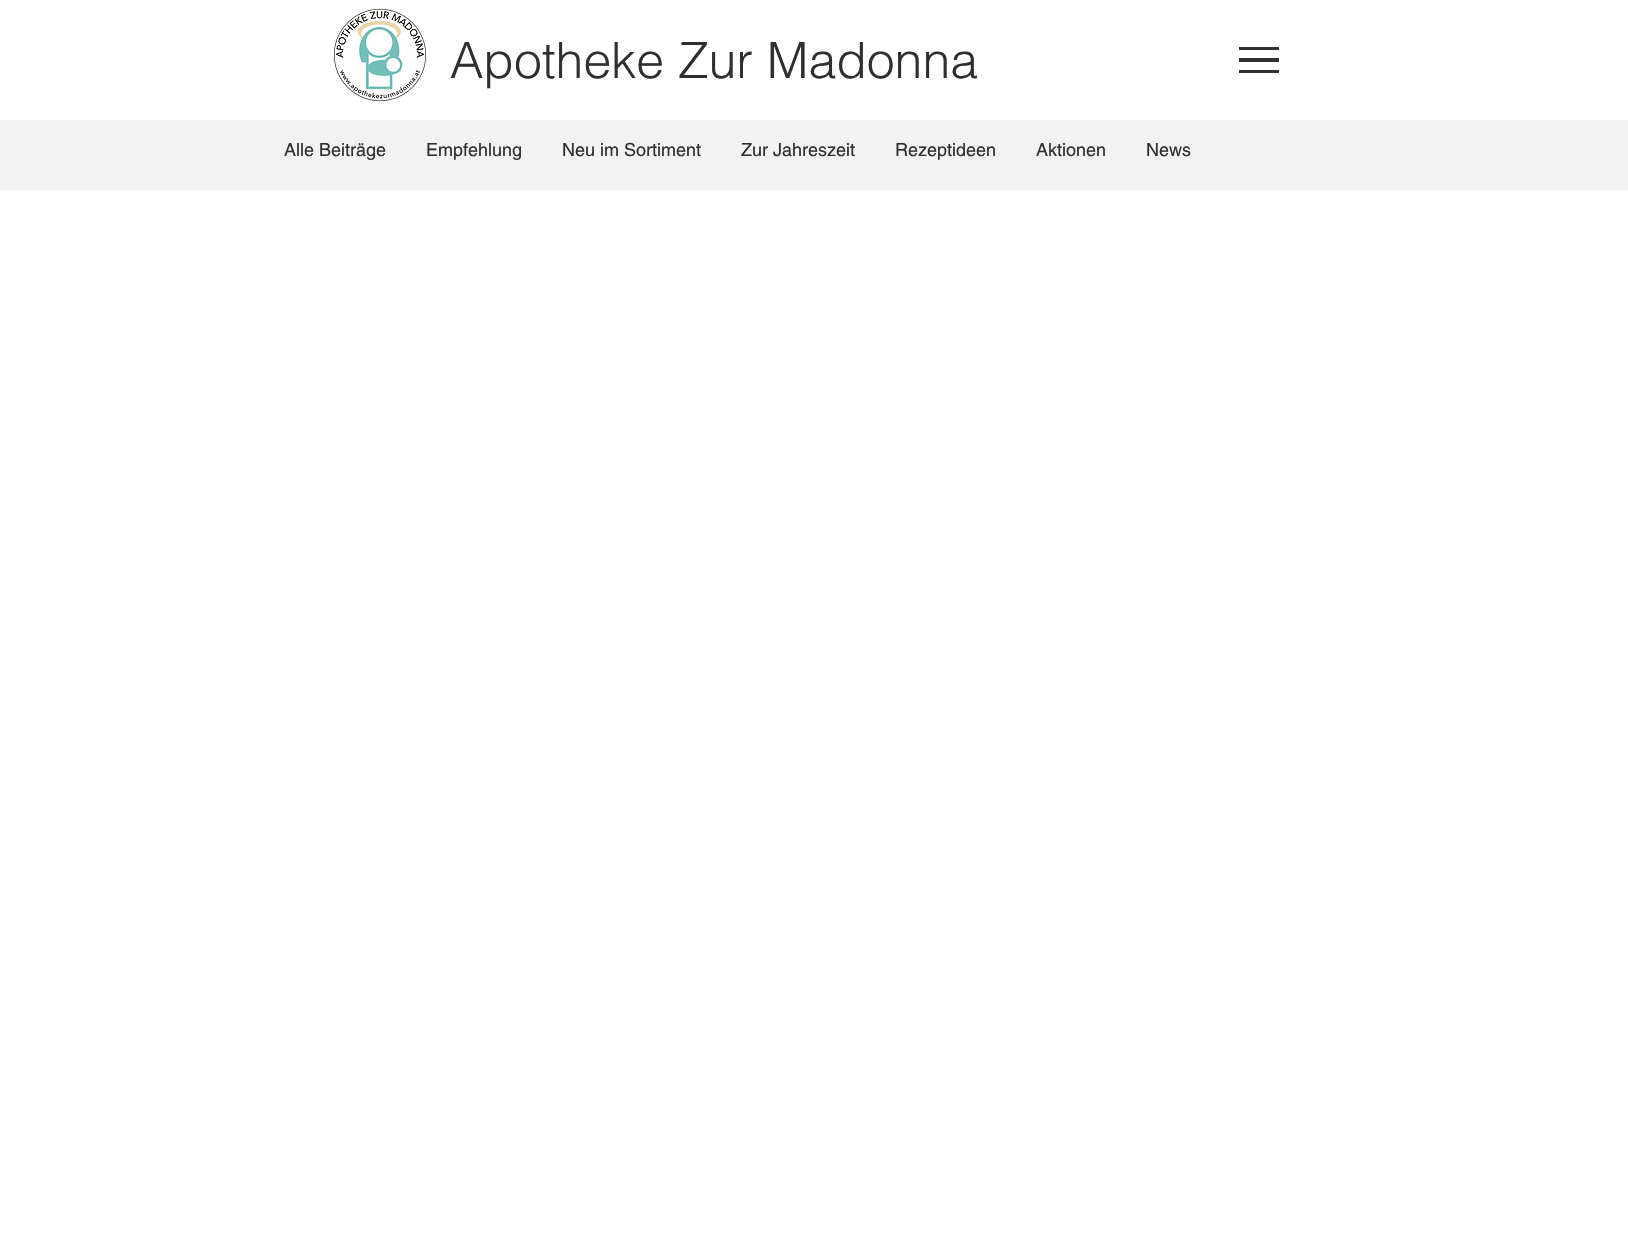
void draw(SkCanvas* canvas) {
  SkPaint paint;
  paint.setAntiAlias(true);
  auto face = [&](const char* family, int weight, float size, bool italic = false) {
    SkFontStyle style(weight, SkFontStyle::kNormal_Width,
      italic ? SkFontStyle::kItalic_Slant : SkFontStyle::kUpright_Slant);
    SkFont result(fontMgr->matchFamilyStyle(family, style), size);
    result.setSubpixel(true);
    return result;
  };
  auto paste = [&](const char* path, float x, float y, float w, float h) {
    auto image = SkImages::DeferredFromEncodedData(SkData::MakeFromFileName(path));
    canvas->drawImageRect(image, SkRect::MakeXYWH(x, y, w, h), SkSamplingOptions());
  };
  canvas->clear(0xffffffff);
  paste("img/1.png", 334, 8, 92, 94);
  {
    const struct { float x, y, w, h; SkColor color; } items[] = {
      {1239, 70, 40, 3, 0xff2f2f30},
      {1239, 47, 40, 3, 0xff2f2f30},
      {1239, 58, 40, 4, 0xff2f2f30},
      {0, 120, 1628, 70, 0xfff2f2f3},
    };
    for (auto [x, y, w, h, color] : items) {
      paint.setColor(color);
      canvas->drawRect(SkRect::MakeXYWH(x, y, w, h), paint);
    }
  }
  auto f0 = face("helvetica", 300, 50);
  paint.setColor(0xff2f2f30);
  canvas->drawString("Apotheke Zur Madonna", 450, 78, f0, paint);
  auto f1 = face("helvetica", 400, 18);
  {
    const struct { const char* s; float x, y; } items[] = {
      {"Alle Beiträge", 284, 156},
      {"Empfehlung", 426, 156},
      {"Neu im Sortiment", 562, 156},
      {"Zur Jahreszeit", 741, 156},
      {"Rezeptideen", 895, 156},
      {"Aktionen", 1036, 156},
      {"News", 1146, 156},
    };
    for (auto [s, x, y] : items) {
      canvas->drawString(s, x, y, f1, paint);
    }
  }
}
